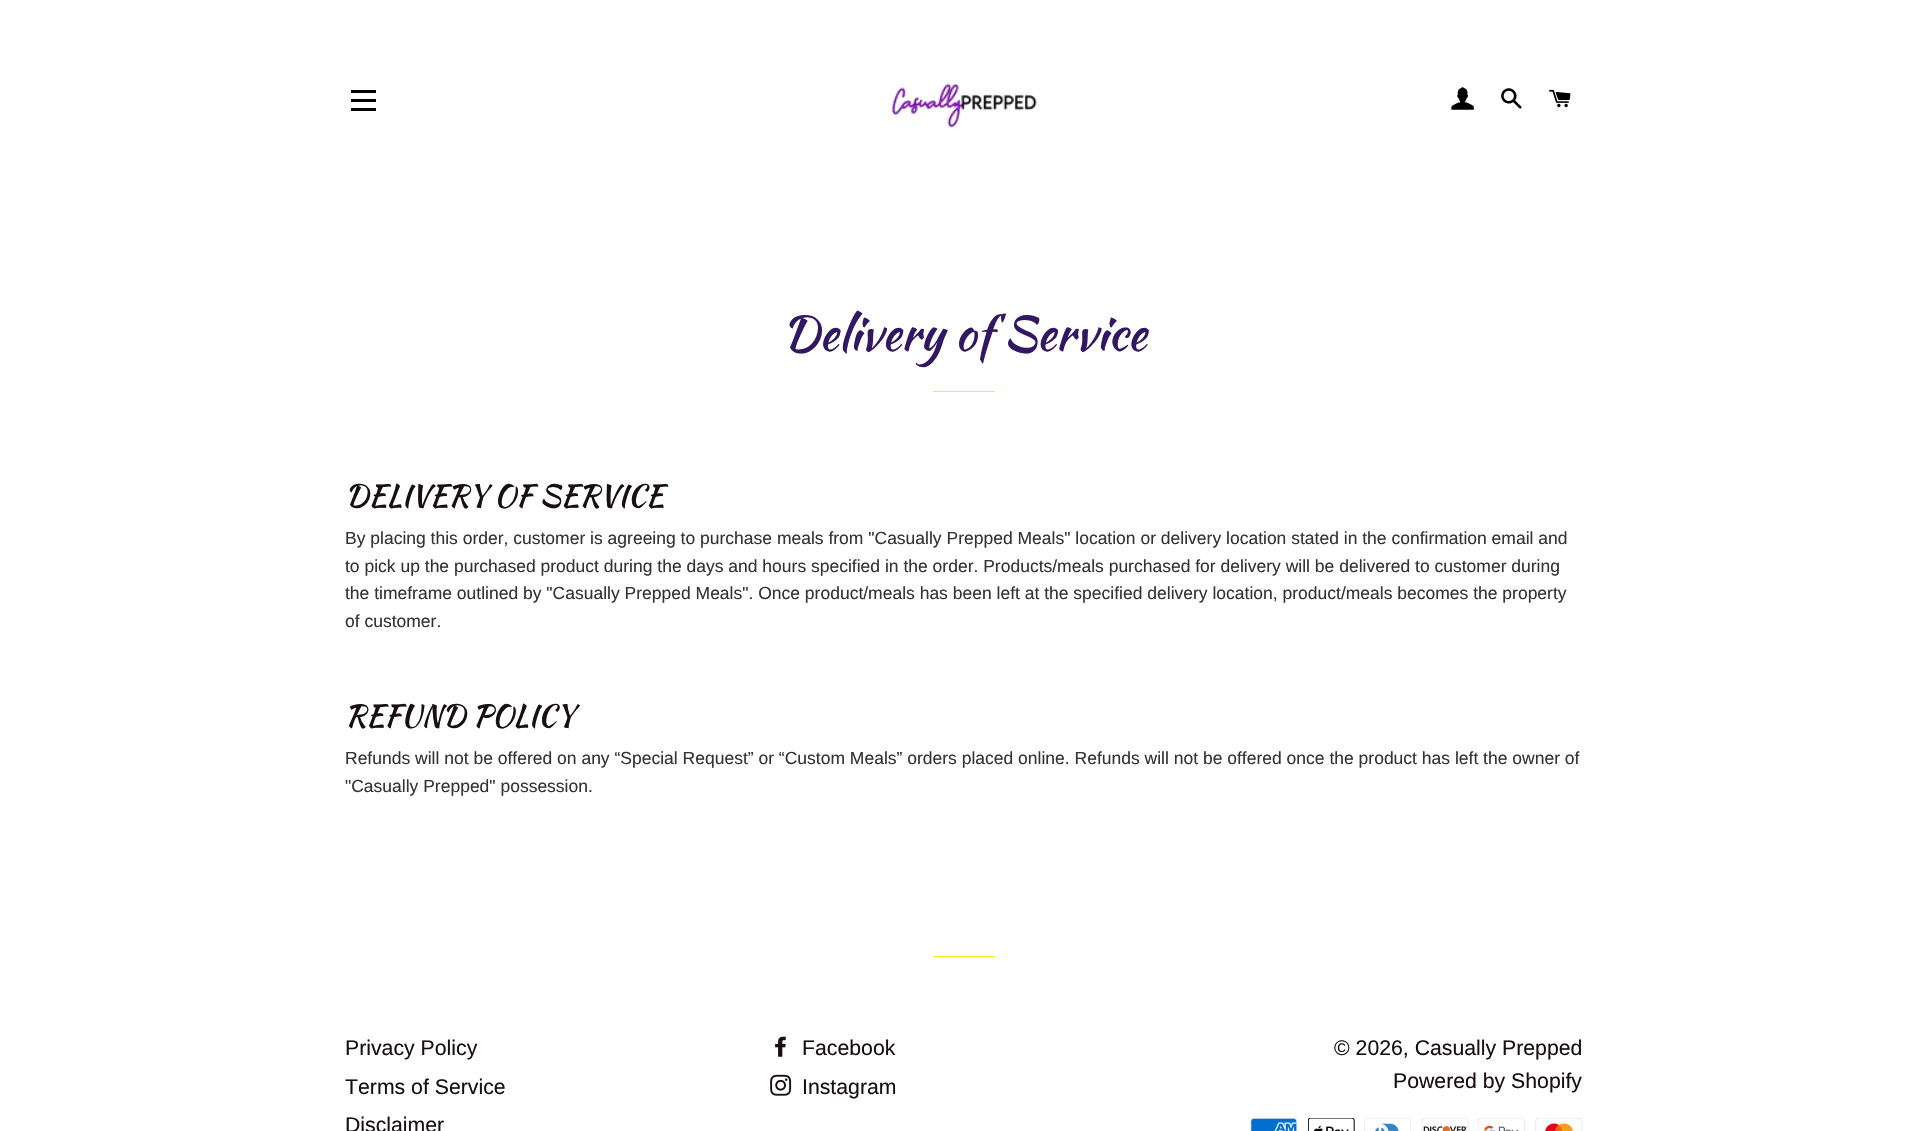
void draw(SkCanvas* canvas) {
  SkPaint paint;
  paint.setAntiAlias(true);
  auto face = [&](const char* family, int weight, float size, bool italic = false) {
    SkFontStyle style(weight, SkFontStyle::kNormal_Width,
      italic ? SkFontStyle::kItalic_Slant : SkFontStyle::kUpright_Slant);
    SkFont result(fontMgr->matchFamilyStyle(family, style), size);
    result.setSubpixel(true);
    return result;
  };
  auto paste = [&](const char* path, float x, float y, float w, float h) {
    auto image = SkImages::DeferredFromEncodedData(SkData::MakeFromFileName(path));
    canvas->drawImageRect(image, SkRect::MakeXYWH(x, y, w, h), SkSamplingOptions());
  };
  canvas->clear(0xffffffff);
  {
    const struct { float x, y, w, h; SkColor color; } items[] = {
      {351, 90, 25, 3, 0xff000000},
      {351, 99, 25, 3, 0xff000000},
      {351, 108, 25, 3, 0xff000000},
    };
    for (auto [x, y, w, h, color] : items) {
      paint.setColor(color);
      canvas->drawRect(SkRect::MakeXYWH(x, y, w, h), paint);
    }
  }
  paste("img/1.png", 891, 83, 146, 45);
  paste("img/2.png", 1451, 87, 23, 23);
  paste("img/3.png", 1501, 88, 21, 21);
  paste("img/4.png", 1549, 89, 22, 19);
  paint.setColor(0xfff6ef1e);
  canvas->drawRect(SkRect::MakeXYWH(933, 391, 62, 1), paint);
  canvas->drawRect(SkRect::MakeXYWH(933, 956, 62, 1), paint);
  paste("img/5.png", 775, 1036, 11, 21);
  paste("img/6.png", 770, 1074, 22, 22);
  paste("img/7.png", 1250, 1118, 48, 13);
  paste("img/8.png", 1308, 1118, 47, 13);
  paste("img/9.png", 1364, 1118, 47, 13);
  paste("img/10.png", 1421, 1118, 48, 13);
  paste("img/11.png", 1478, 1118, 47, 13);
  paste("img/12.png", 1535, 1118, 48, 13);
  auto f0 = face("Kaushan Script", 400, 47.5f);
  paint.setColor(0xff321863);
  canvas->drawString("Delivery of Service", 782, 350, f0, paint);
  auto f1 = face("Kaushan Script", 400, 30);
  paint.setColor(0xff170f12);
  canvas->drawString("DELIVERY OF SERVICE", 345, 506, f1, paint);
  auto f2 = face("Liberation Sans", 400, 17.5f);
  paint.setColor(0xff333333);
  {
    const struct { const char* s; float x, y; } items[] = {
      {"By placing this order, customer is agreeing to purchase meals from \"Casually Prepped Meals\" location or delivery location stated in the confirmation email and", 345, 544},
      {"to pick up the purchased product during the days and hours specified in the order. Products/meals purchased for delivery will be delivered to customer during", 345, 572},
      {"the timeframe outlined by \"Casually Prepped Meals\". Once product/meals has been left at the specified delivery location, product/meals becomes the property", 345, 599},
      {"of customer.", 345, 627},
    };
    for (auto [s, x, y] : items) {
      canvas->drawString(s, x, y, f2, paint);
    }
  }
  paint.setColor(0xff170f12);
  canvas->drawString("REFUND POLICY", 345, 726, f1, paint);
  paint.setColor(0xff333333);
  canvas->drawString("Refunds will not be offered on any “Special Request” or “Custom Meals” orders placed online. Refunds will not be offered once the product has left the owner of", 345, 764, f2, paint);
  canvas->drawString("\"Casually Prepped\" possession.", 345, 792, f2, paint);
  auto f3 = face("Liberation Sans", 400, 21.25f);
  paint.setColor(0xff170f12);
  {
    const struct { const char* s; float x, y; } items[] = {
      {"Privacy Policy", 345, 1055},
      {"Terms of Service", 345, 1094},
      {"Disclaimer", 345, 1132},
      {"Facebook", 802, 1055},
      {"Instagram", 802, 1094},
      {"© 2026, Casually Prepped", 1334, 1055},
      {"Powered by Shopify", 1393, 1088},
    };
    for (auto [s, x, y] : items) {
      canvas->drawString(s, x, y, f3, paint);
    }
  }
}
